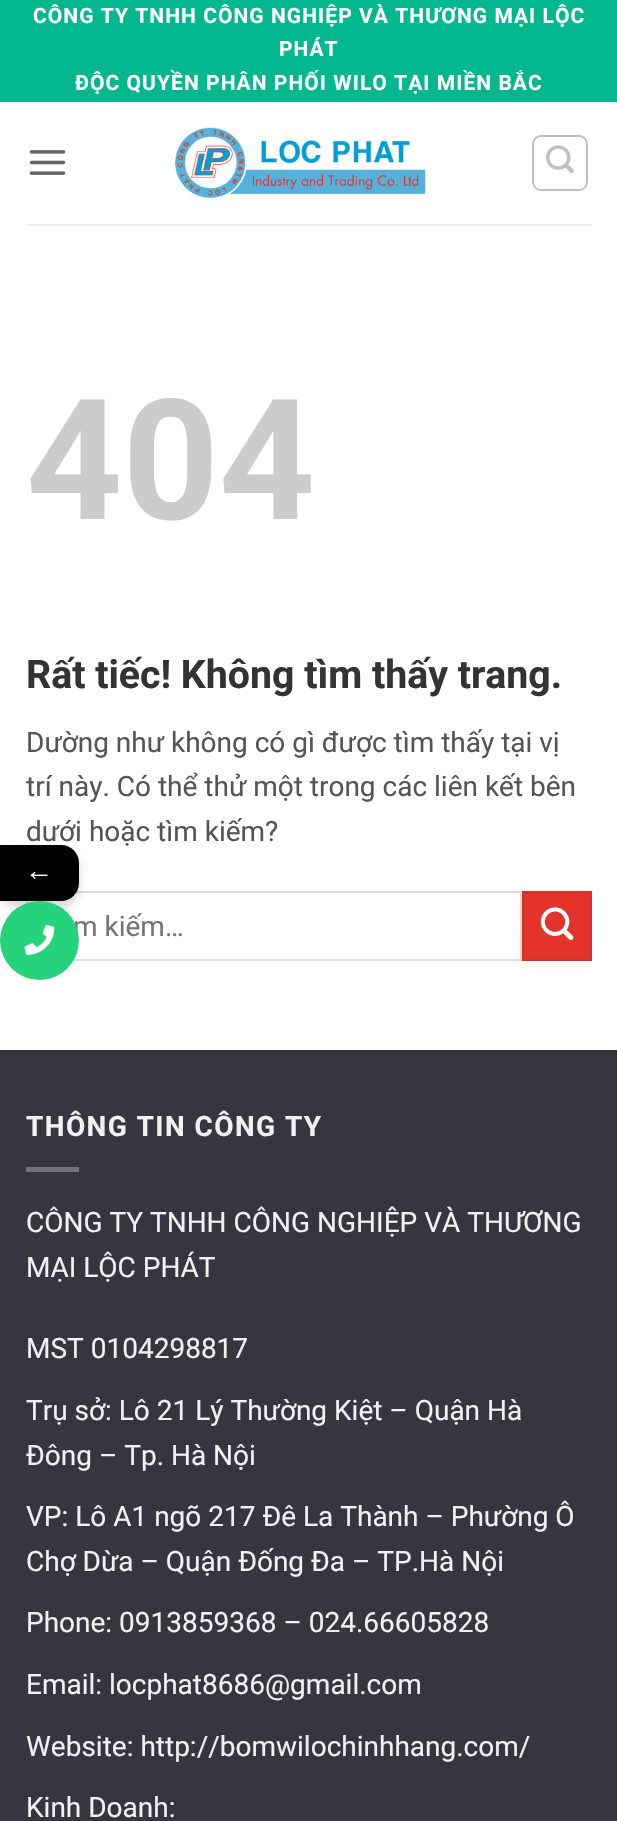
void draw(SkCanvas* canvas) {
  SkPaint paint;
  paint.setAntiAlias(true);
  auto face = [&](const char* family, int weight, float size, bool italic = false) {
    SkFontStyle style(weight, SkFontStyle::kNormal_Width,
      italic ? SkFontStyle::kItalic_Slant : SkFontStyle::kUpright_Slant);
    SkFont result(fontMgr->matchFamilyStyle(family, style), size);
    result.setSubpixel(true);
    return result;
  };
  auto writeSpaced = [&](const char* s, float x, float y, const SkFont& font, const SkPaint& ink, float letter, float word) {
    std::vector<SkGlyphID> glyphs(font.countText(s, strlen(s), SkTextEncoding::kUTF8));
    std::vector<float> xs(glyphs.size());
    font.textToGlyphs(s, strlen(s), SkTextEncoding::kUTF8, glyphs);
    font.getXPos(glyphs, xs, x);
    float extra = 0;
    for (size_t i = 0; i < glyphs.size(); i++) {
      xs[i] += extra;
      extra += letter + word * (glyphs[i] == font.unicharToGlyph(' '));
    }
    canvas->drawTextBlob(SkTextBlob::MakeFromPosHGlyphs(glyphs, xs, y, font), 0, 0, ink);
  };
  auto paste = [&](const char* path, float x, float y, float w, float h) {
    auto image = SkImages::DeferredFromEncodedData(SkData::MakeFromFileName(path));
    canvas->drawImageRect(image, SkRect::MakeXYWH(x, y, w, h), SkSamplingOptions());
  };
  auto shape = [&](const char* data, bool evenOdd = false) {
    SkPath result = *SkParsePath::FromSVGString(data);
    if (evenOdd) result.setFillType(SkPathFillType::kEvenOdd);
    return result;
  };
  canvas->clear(0xffffffff);
  paint.setColor(0xff03b78f);
  canvas->drawRect(SkRect::MakeXYWH(0, 0, 617, 102), paint);
  paste("img/1.png", 29, 150, 37, 25);
  paste("img/2.png", 175, 127, 251, 71);
  paint.setStroke(true);
  paint.setStrokeWidth(2);
  paint.setColor(0xffc0c0c0);
  canvas->drawRoundRect(SkRect::MakeXYWH(533, 136, 54, 54), 8, 8, paint);
  paste("img/3.png", 546, 145, 28, 29);
  paint.setStroke(false);
  paint.setColor(0xffeeeeee);
  canvas->drawRect(SkRect::MakeXYWH(26, 224, 566, 2), paint);
  paint.setStroke(true);
  paint.setColor(0xffdddddd);
  canvas->drawRect(SkRect::MakeXYWH(27, 892, 494, 68), paint);
  paint.setStroke(false);
  paint.setColor(0xffe4332b);
  canvas->drawRect(SkRect::MakeXYWH(523, 892, 68, 68), paint);
  paint.setStroke(true);
  paint.setColor(0xffd93029);
  canvas->drawRect(SkRect::MakeXYWH(523, 892, 68, 68), paint);
  paste("img/4.png", 540, 907, 34, 33);
  paint.setStroke(false);
  {
    const struct { float x, y, w, h; SkColor color; } items[] = {
      {0, 1052, 617, 769, 0xff363640},
      {0, 1050, 617, 2, 0xff33333d},
      {26, 1167, 53, 5, 0xff727279},
    };
    for (auto [x, y, w, h, color] : items) {
      paint.setColor(color);
      canvas->drawRect(SkRect::MakeXYWH(x, y, w, h), paint);
    }
  }
  paint.setColor(0x29000000);
  paint.setMaskFilter(SkMaskFilter::MakeBlur(kNormal_SkBlurStyle, 5));
  canvas->drawRoundRect(SkRect::MakeXYWH(0, 851, 79, 56), 18, 18, paint);
  paint.setMaskFilter(nullptr);
  auto f0 = face("Roboto", 700, 21);
  paint.setColor(0xffffffff);
  {
    const struct { const char* s; float x, y; } items[] = {
      {"CÔNG TY TNHH CÔNG NGHIỆP VÀ THƯƠNG MẠI LỘC", 33, 23},
      {"PHÁT", 279, 56},
      {"ĐỘC QUYỀN PHÂN PHỐI WILO TẠI MIỀN BẮC", 75, 90},
    };
    for (auto [s, x, y] : items) {
      writeSpaced(s, x, y, f0, paint, 1.05f, 0);
    }
  }
  auto f1 = face("Roboto", 700, 168);
  paint.setColor(0xffcccccc);
  canvas->drawString("404", 26, 519, f1, paint);
  auto f2 = face("Roboto", 700, 39.25f);
  paint.setColor(0xff333333);
  canvas->drawString("Rất tiếc! Không tìm thấy trang.", 26, 688, f2, paint);
  auto f3 = face("Roboto", 400, 28);
  paint.setColor(0xff555555);
  {
    const struct { const char* s; float x, y; } items[] = {
      {"Dường như không có gì được tìm thấy tại vị", 26, 752},
      {"trí này. Có thể thử một trong các liên kết bên", 26, 796},
      {"dưới hoặc tìm kiếm?", 26, 841},
    };
    for (auto [s, x, y] : items) {
      canvas->drawString(s, x, y, f3, paint);
    }
  }
  paint.setColor(0xff757575);
  canvas->drawString("m kiếm…", 73, 936, f3, paint);
  auto f4 = face("Roboto", 700, 28);
  paint.setColor(0xfff1f1f1);
  writeSpaced("THÔNG TIN CÔNG TY", 26, 1136, f4, paint, 1.4f, 0);
  {
    const struct { const char* s; float x, y; } items[] = {
      {"CÔNG TY TNHH CÔNG NGHIỆP VÀ THƯƠNG", 26, 1232},
      {"MẠI LỘC PHÁT", 26, 1277},
      {"MST 0104298817", 26, 1358},
      {"Trụ sở: Lô 21 Lý Thường Kiệt – Quận Hà", 26, 1420},
      {"Đông – Tp. Hà Nội", 26, 1465},
      {"VP: Lô A1 ngõ 217 Đê La Thành – Phường Ô", 26, 1526},
      {"Chợ Dừa – Quận Đống Đa – TP.Hà Nội", 26, 1571},
      {"Phone: 0913859368 – 024.66605828", 26, 1632},
      {"Email: locphat8686@gmail.com", 26, 1694},
      {"Website: http://bomwilochinhhang.com/", 26, 1756},
      {"Kinh Doanh:", 26, 1817},
    };
    for (auto [s, x, y] : items) {
      canvas->drawString(s, x, y, f3, paint);
    }
  }
  paint.setColor(0xff000000);
  canvas->drawPath(shape("M0 845H61C71 845 79 853 79 863V883C79 893 71 901 61 901H0Z"), paint);
  auto f5 = face("Liberation Serif", 400, 28);
  paint.setColor(0xffffffff);
  canvas->drawString("←", 25, 880, f5, paint);
  paint.setColor(0xff26d37c);
  canvas->drawCircle(39.5f, 940.5f, 39.5f, paint);
  paste("img/5.png", 24, 925, 31, 30);
}
